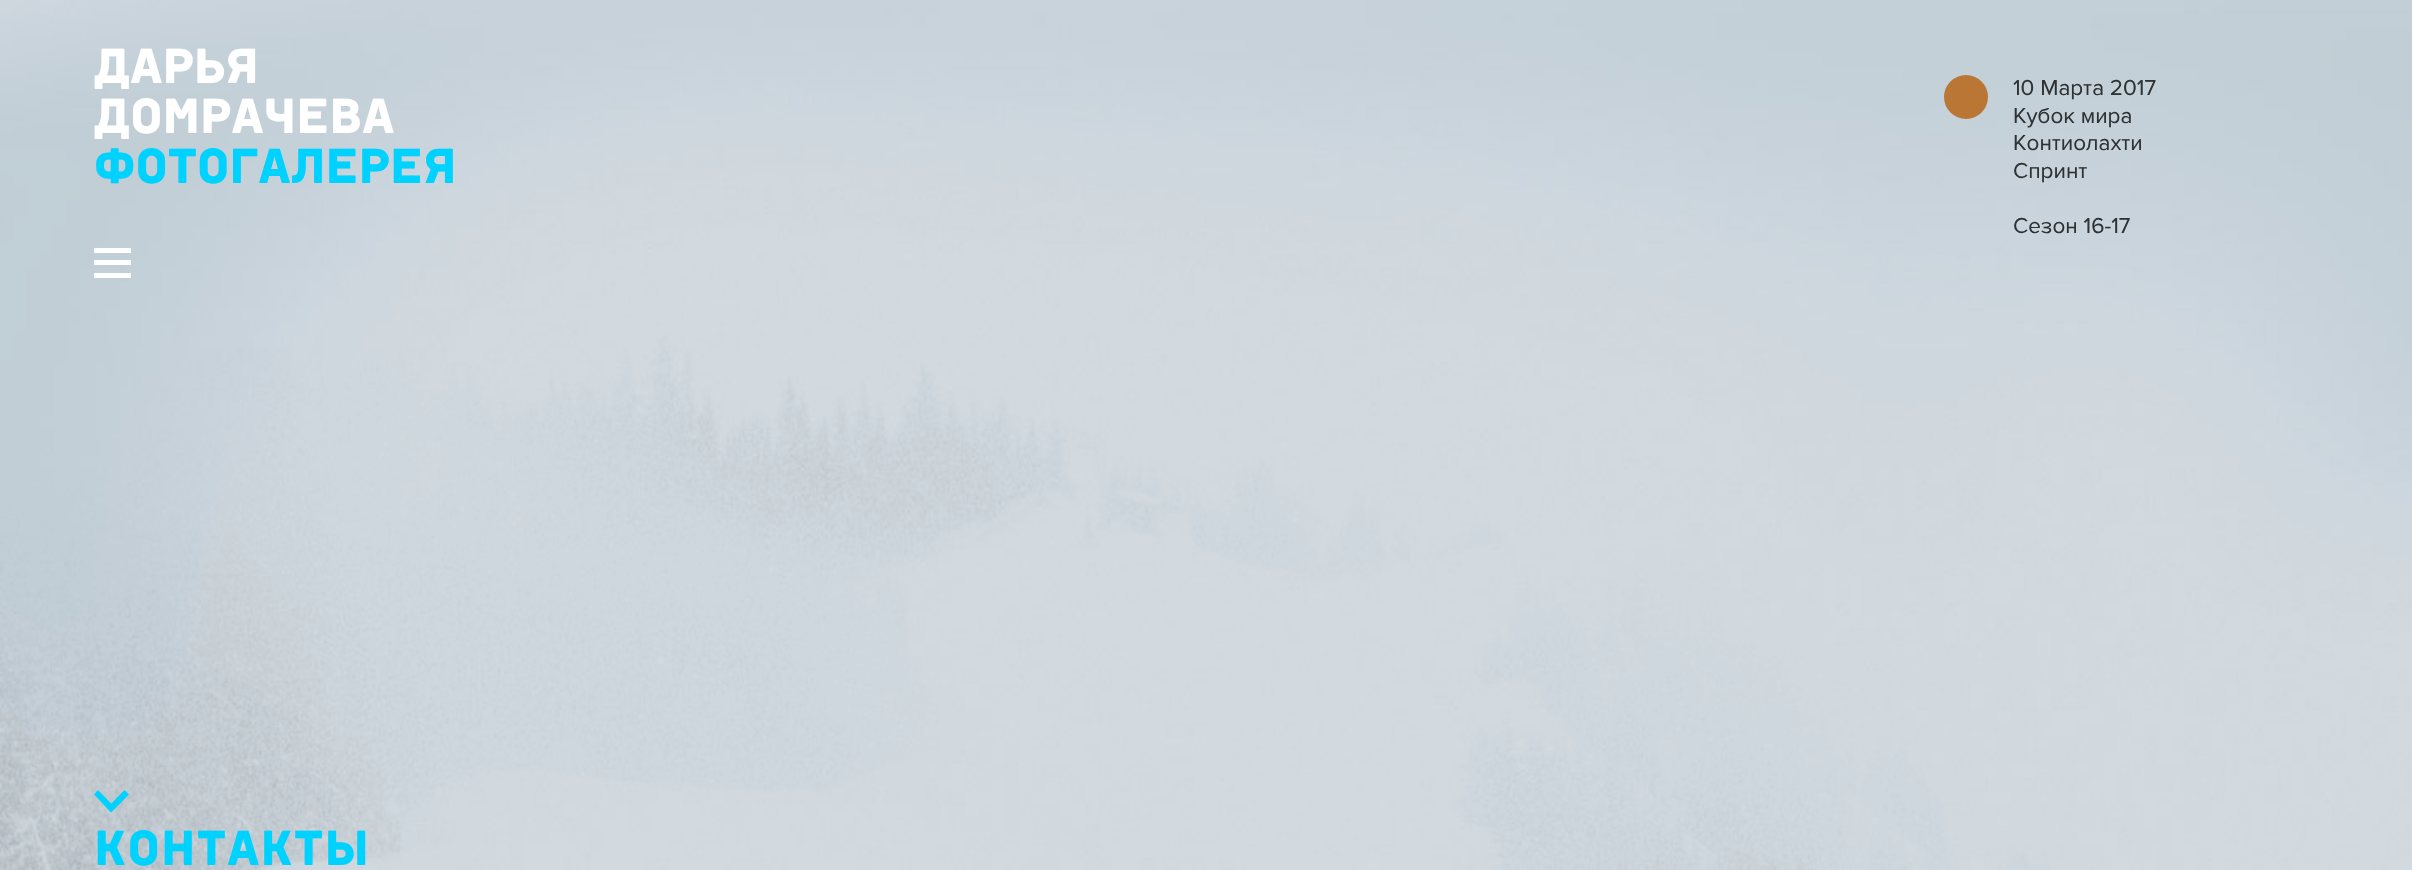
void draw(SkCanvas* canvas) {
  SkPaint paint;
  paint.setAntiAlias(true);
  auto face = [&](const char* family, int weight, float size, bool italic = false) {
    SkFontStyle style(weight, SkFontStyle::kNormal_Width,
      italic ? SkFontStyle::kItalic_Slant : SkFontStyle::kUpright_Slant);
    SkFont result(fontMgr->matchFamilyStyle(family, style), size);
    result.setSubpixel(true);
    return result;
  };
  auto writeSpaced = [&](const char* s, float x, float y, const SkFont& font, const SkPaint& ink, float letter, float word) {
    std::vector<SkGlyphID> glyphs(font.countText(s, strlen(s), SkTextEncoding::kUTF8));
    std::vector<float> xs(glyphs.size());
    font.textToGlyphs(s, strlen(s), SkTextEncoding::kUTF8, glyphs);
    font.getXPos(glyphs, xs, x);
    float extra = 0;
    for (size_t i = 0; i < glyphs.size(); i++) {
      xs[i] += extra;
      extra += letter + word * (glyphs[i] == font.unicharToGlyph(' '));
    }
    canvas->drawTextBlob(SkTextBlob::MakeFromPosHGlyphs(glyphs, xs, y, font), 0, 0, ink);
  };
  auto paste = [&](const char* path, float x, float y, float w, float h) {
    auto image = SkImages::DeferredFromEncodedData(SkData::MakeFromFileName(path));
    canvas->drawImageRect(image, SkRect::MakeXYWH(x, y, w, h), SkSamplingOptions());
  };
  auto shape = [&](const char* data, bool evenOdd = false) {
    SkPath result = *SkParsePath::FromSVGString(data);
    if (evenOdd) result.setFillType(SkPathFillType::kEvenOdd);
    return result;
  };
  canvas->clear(0xffffffff);
  paste("img/1.png", 0, 0, 2412, 870);
  {
    const struct { float x, y, w, h; SkColor color; } items[] = {
      {94, 248, 37, 5, 0xffffffff},
      {94, 260, 37, 5, 0xffffffff},
      {94, 273, 37, 5, 0xffffffff},
    };
    for (auto [x, y, w, h, color] : items) {
      paint.setColor(color);
      canvas->drawRect(SkRect::MakeXYWH(x, y, w, h), paint);
    }
  }
  paint.setColor(0xffb97634);
  canvas->drawCircle(1966, 97, 22, paint);
  paint.setColor(0xff00d2ff);
  canvas->drawPath(shape("M129 794.5L124.5 790L107 808L111 812.5ZM115.5 808L98 790L94 794.5L111 812.5Z"), paint);
  auto f0 = face("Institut", 400, 50);
  paint.setColor(0xffffffff);
  canvas->drawString("Дарья", 94, 83, f0, paint);
  canvas->drawString("Домрачева", 94, 133, f0, paint);
  paint.setColor(0xff00d2ff);
  canvas->drawString("Фотогалерея", 94, 183, f0, paint);
  auto f1 = face("Proxima Nova", 400, 22.5f);
  paint.setColor(0xff2e3234);
  {
    const struct { const char* s; float x, y; } items[] = {
      {"10 Марта 2017", 2013, 95},
      {"Кубок мира", 2013, 123},
      {"Контиолахти", 2013, 150},
      {"Спринт", 2013, 178},
      {"Сезон 16-17", 2013, 233},
    };
    for (auto [s, x, y] : items) {
      canvas->drawString(s, x, y, f1, paint);
    }
  }
  paint.setColor(0xff00d2ff);
  writeSpaced("КОНТАКТЫ", 94, 865, f0, paint, 1.25f, 0);
}
